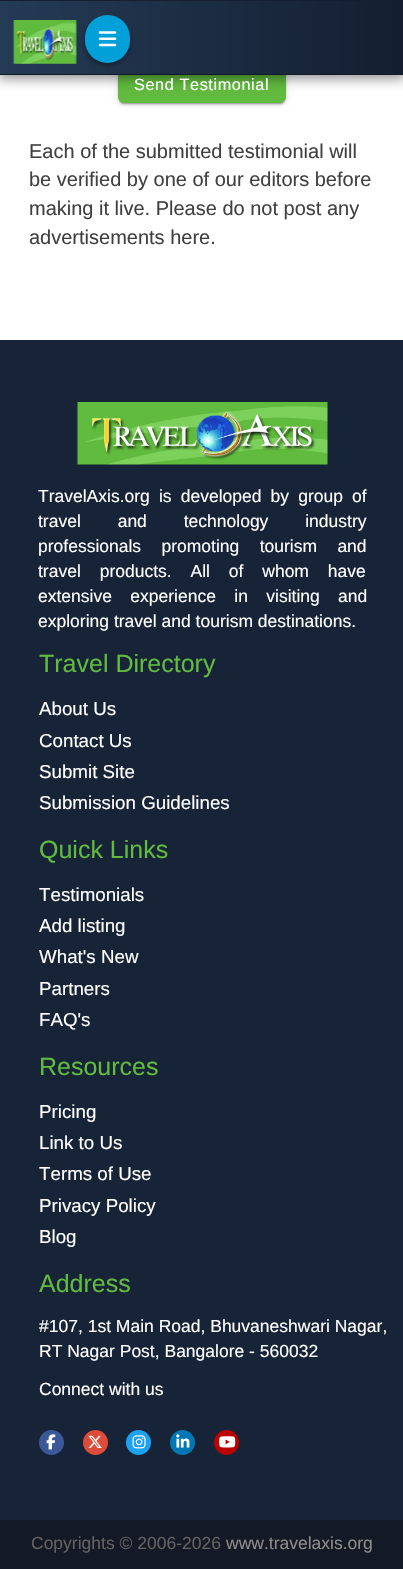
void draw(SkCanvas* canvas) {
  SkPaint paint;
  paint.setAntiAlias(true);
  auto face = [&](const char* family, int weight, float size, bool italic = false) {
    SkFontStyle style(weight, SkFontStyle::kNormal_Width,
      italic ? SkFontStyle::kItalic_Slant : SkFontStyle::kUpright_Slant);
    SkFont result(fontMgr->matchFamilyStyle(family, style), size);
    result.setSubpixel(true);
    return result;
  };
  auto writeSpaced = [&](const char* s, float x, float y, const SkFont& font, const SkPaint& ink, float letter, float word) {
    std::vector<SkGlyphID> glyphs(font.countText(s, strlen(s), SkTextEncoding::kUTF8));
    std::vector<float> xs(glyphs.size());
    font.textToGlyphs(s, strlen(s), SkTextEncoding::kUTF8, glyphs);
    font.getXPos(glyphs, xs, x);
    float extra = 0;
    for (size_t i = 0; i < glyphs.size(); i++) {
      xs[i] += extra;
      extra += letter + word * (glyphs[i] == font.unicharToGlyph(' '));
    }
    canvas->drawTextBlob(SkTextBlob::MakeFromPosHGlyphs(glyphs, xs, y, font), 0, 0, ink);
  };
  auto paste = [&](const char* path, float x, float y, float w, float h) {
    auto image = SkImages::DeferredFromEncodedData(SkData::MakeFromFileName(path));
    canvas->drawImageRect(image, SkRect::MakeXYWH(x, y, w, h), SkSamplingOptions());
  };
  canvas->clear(0xffffffff);
  paint.setColor(0x33000000);
  paint.setMaskFilter(SkMaskFilter::MakeBlur(kNormal_SkBlurStyle, 0.5f));
  canvas->drawRoundRect(SkRect::MakeXYWH(120, 74, 164, 30), 4, 4, paint);
  paint.setMaskFilter(nullptr);
  paint.setColor(0x1f000000);
  paint.setMaskFilter(SkMaskFilter::MakeBlur(kNormal_SkBlurStyle, 3));
  canvas->drawRoundRect(SkRect::MakeXYWH(118, 69, 168, 35), 6, 6, paint);
  paint.setMaskFilter(nullptr);
  paint.setColor(0x24000000);
  paint.setMaskFilter(SkMaskFilter::MakeBlur(kNormal_SkBlurStyle, 1));
  canvas->drawRoundRect(SkRect::MakeXYWH(118, 70, 168, 35), 6, 6, paint);
  paint.setMaskFilter(nullptr);
  paint.setColor(0xff61bb3e);
  canvas->drawRoundRect(SkRect::MakeXYWH(118, 68, 168, 35), 6, 6, paint);
  paint.setColor(0x78000000);
  paint.setMaskFilter(SkMaskFilter::MakeBlur(kNormal_SkBlurStyle, 6));
  canvas->drawRect(SkRect::MakeXYWH(-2, -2, 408, 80), paint);
  paint.setMaskFilter(nullptr);
  {
    const SkColor colors[] = {0xff243b55, 0xff141e30};
    const float stops[] = {0, 1};
    const SkPoint ends[] = {{0, 38}, {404, 37}};
    paint.setShader(SkGradientShader::MakeLinear(ends, colors, stops, 2, SkTileMode::kClamp));
    paint.setAlpha(255);
  }
  canvas->drawRect(SkRect::MakeXYWH(0, 1, 403, 73), paint);
  paint.setShader(nullptr);
  paint.setColor(0xff151f31);
  canvas->drawRect(SkRect::MakeXYWH(0, 0, 403, 1), paint);
  paint.setColor(0xff111a29);
  canvas->drawRect(SkRect::MakeXYWH(0, 74, 403, 1), paint);
  paste("img/1.png", 13, 20, 64, 44);
  paint.setColor(0x73000000);
  paint.setMaskFilter(SkMaskFilter::MakeBlur(kNormal_SkBlurStyle, 2.5f));
  canvas->drawRoundRect(SkRect::MakeXYWH(85, 18, 45, 47), 22.5f, 22.5f, paint);
  paint.setMaskFilter(nullptr);
  paint.setColor(0xff01a0d8);
  canvas->drawRoundRect(SkRect::MakeXYWH(85, 15, 45, 48), 22.5f, 22.5f, paint);
  paste("img/2.png", 98, 31, 19, 16);
  paint.setColor(0xff172437);
  canvas->drawRect(SkRect::MakeXYWH(0, 340, 403, 1180), paint);
  paste("img/3.png", 77, 402, 251, 63);
  paint.setColor(0xff3b5998);
  canvas->drawCircle(51.5f, 1442.5f, 12.5f, paint);
  paste("img/4.png", 46, 1434, 10, 16);
  paint.setColor(0xffdd4b39);
  canvas->drawCircle(95.5f, 1442.5f, 12.5f, paint);
  paste("img/5.png", 88, 1435, 14, 13);
  paint.setColor(0xff1da1f2);
  canvas->drawCircle(138.5f, 1442.5f, 12.5f, paint);
  paste("img/6.png", 132, 1435, 14, 14);
  paint.setColor(0xff0077b5);
  canvas->drawCircle(182.5f, 1442.5f, 12.5f, paint);
  paste("img/7.png", 176, 1434, 14, 14);
  paint.setColor(0xffbb0000);
  canvas->drawCircle(226.5f, 1442.5f, 12.5f, paint);
  paste("img/8.png", 219, 1436, 17, 12);
  paint.setColor(0xff131925);
  canvas->drawRect(SkRect::MakeXYWH(0, 1520, 403, 49), paint);
  auto f0 = face("Liberation Sans", 400, 16.25f);
  paint.setColor(0xffffffff);
  writeSpaced("Send Testimonial", 134, 90, f0, paint, 0.6f, 0);
  auto f1 = face("Liberation Sans", 400, 20);
  paint.setColor(0xff404040);
  {
    const struct { const char* s; float x, y; } items[] = {
      {"Each of the submitted testimonial will", 29, 158},
      {"be verified by one of our editors before", 29, 186},
      {"making it live. Please do not post any", 29, 215},
      {"advertisements here.", 29, 244},
    };
    for (auto [s, x, y] : items) {
      canvas->drawString(s, x, y, f1, paint);
    }
  }
  auto f2 = face("Liberation Sans", 400, 17.5f);
  paint.setColor(0xffffffff);
  writeSpaced("TravelAxis.org is developed by group of", 38, 502, f2, paint, 0, 4.25f);
  writeSpaced("travel and technology industry", 38, 527, f2, paint, 0, 32);
  writeSpaced("professionals promoting tourism and", 38, 552, f2, paint, 0, 15.5f);
  writeSpaced("travel products. All of whom have", 38, 577, f2, paint, 0, 14);
  writeSpaced("extensive experience in visiting and", 38, 602, f2, paint, 0, 13.5f);
  canvas->drawString("exploring travel and tourism destinations.", 38, 627, f2, paint);
  auto f3 = face("Liberation Sans", 400, 25);
  paint.setColor(0xff61bb3e);
  canvas->drawString("Travel Directory", 39, 672, f3, paint);
  auto f4 = face("Liberation Sans", 400, 18.75f);
  paint.setColor(0xffffffff);
  {
    const struct { const char* s; float x, y; } items[] = {
      {"About Us", 39, 715},
      {"Contact Us", 39, 747},
      {"Submit Site", 39, 778},
      {"Submission Guidelines", 39, 809},
    };
    for (auto [s, x, y] : items) {
      canvas->drawString(s, x, y, f4, paint);
    }
  }
  paint.setColor(0xff61bb3e);
  canvas->drawString("Quick Links", 39, 858, f3, paint);
  paint.setColor(0xffffffff);
  {
    const struct { const char* s; float x, y; } items[] = {
      {"Testimonials", 39, 901},
      {"Add listing", 39, 932},
      {"What's New", 39, 963},
      {"Partners", 39, 995},
      {"FAQ's", 39, 1026},
    };
    for (auto [s, x, y] : items) {
      canvas->drawString(s, x, y, f4, paint);
    }
  }
  paint.setColor(0xff61bb3e);
  canvas->drawString("Resources", 39, 1075, f3, paint);
  paint.setColor(0xffffffff);
  {
    const struct { const char* s; float x, y; } items[] = {
      {"Pricing", 39, 1118},
      {"Link to Us", 39, 1149},
      {"Terms of Use", 39, 1180},
      {"Privacy Policy", 39, 1212},
      {"Blog", 39, 1243},
    };
    for (auto [s, x, y] : items) {
      canvas->drawString(s, x, y, f4, paint);
    }
  }
  paint.setColor(0xff61bb3e);
  canvas->drawString("Address", 39, 1292, f3, paint);
  paint.setColor(0xffffffff);
  {
    const struct { const char* s; float x, y; } items[] = {
      {"#107, 1st Main Road, Bhuvaneshwari Nagar,", 39, 1332},
      {"RT Nagar Post, Bangalore - 560032", 39, 1357},
      {"Connect with us", 39, 1395},
    };
    for (auto [s, x, y] : items) {
      canvas->drawString(s, x, y, f2, paint);
    }
  }
  paint.setColor(0xff636363);
  canvas->drawString("Copyrights © 2006-2026", 31, 1549, f2, paint);
  paint.setColor(0xff8c8c8d);
  canvas->drawString("www.travelaxis.org", 226, 1549, f2, paint);
}
